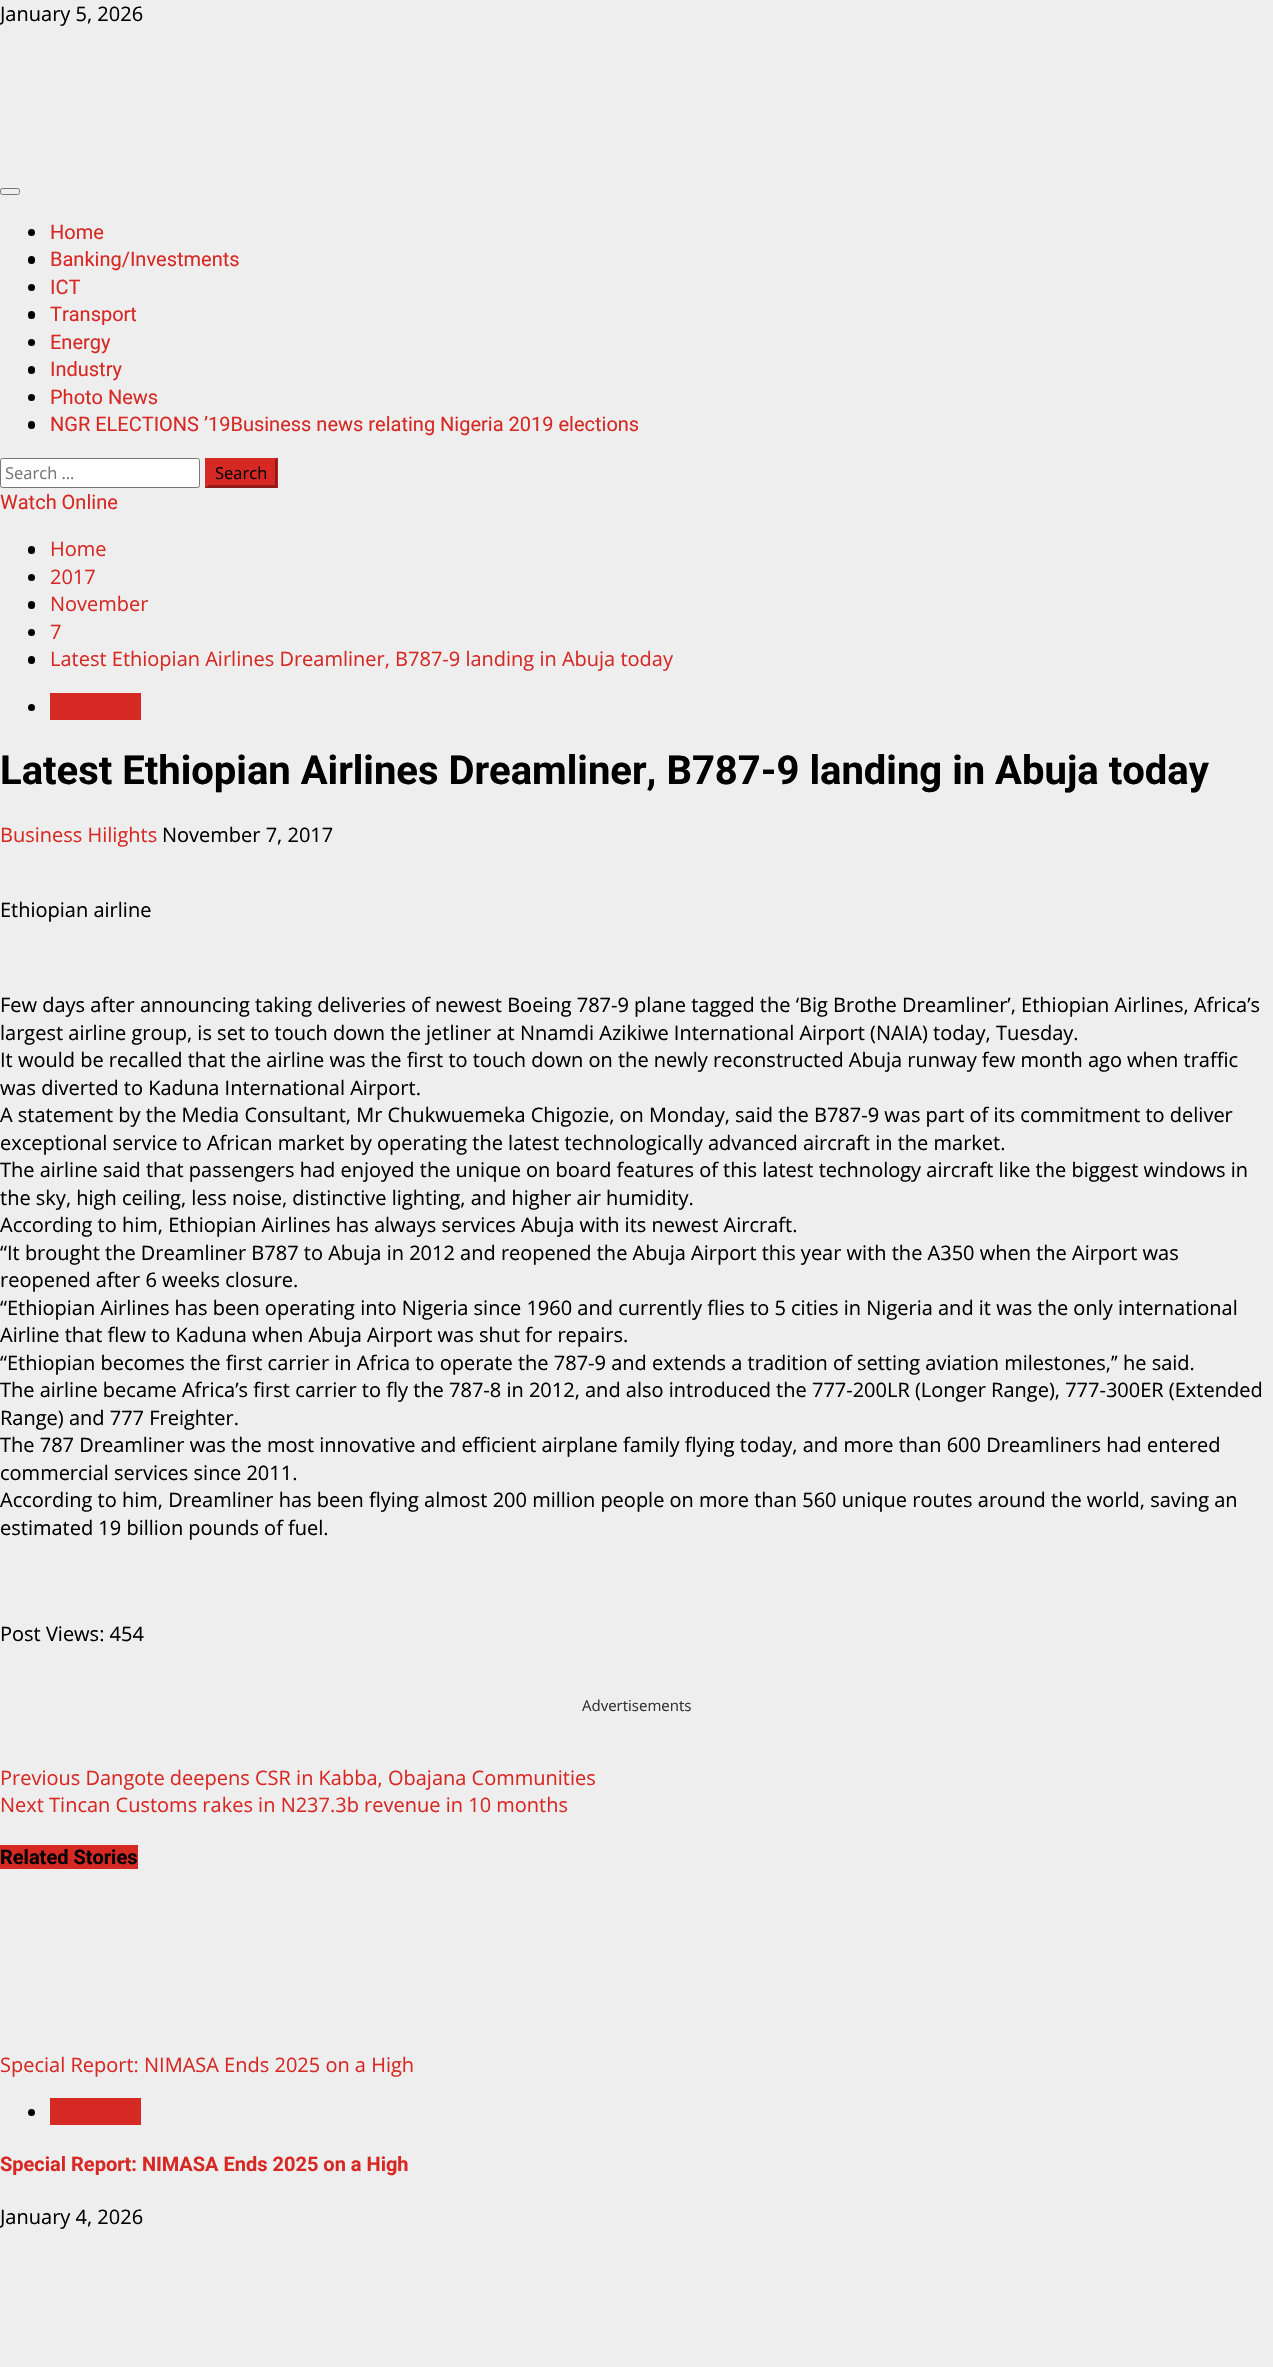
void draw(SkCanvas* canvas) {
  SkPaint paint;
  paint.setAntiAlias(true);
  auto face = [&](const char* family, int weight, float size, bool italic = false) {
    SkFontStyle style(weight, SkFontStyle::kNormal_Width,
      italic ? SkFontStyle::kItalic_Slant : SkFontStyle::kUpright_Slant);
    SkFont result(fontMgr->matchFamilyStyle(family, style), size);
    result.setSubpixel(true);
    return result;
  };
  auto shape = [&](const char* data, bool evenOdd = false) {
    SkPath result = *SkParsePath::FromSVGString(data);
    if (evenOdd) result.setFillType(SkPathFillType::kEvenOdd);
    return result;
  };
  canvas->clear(0xffeeeeee);
  paint.setStroke(true);
  paint.setStrokeWidth(1);
  paint.setColor(0xff767676);
  canvas->drawRoundRect(SkRect::MakeXYWH(0.5f, 188.5f, 19, 6), 2, 2, paint);
  paint.setStroke(false);
  paint.setColor(0xff000000);
  canvas->drawCircle(31.5f, 232.5f, 3.5f, paint);
  canvas->drawRoundRect(SkRect::MakeXYWH(28, 256, 7, 8), 3.5f, 3.5f, paint);
  canvas->drawCircle(31.5f, 287.5f, 3.5f, paint);
  canvas->drawRoundRect(SkRect::MakeXYWH(28, 311, 7, 8), 3.5f, 3.5f, paint);
  canvas->drawCircle(31.5f, 342.5f, 3.5f, paint);
  canvas->drawRoundRect(SkRect::MakeXYWH(28, 366, 7, 8), 3.5f, 3.5f, paint);
  canvas->drawCircle(31.5f, 397.5f, 3.5f, paint);
  canvas->drawRoundRect(SkRect::MakeXYWH(28, 421, 7, 8), 3.5f, 3.5f, paint);
  paint.setColor(0xffffffff);
  canvas->drawRoundRect(SkRect::MakeXYWH(0.5f, 458.5f, 199, 29), 2, 2, paint);
  paint.setStroke(true);
  paint.setColor(0xff767676);
  canvas->drawRoundRect(SkRect::MakeXYWH(0.5f, 458.5f, 199, 29), 2, 2, paint);
  paint.setStroke(false);
  paint.setColor(0xffd72924);
  canvas->drawRect(SkRect::MakeXYWH(205, 458, 73, 30), paint);
  paint.setColor(0xff8f1b18);
  canvas->drawPath(shape("M277.5 457.5V487.5L275 485V460Z"), paint);
  canvas->drawPath(shape("M278 488H205L208 485H275Z"), paint);
  paint.setColor(0xffd72924);
  canvas->drawPath(shape("M205 487.5V457.5L207.5 460V485Z"), paint);
  paint.setColor(0xff000000);
  canvas->drawRoundRect(SkRect::MakeXYWH(28, 546, 7, 8), 3.5f, 3.5f, paint);
  canvas->drawCircle(31.5f, 577.5f, 3.5f, paint);
  canvas->drawRoundRect(SkRect::MakeXYWH(28, 601, 7, 8), 3.5f, 3.5f, paint);
  canvas->drawCircle(31.5f, 632.5f, 3.5f, paint);
  canvas->drawRoundRect(SkRect::MakeXYWH(28, 656, 7, 8), 3.5f, 3.5f, paint);
  canvas->drawCircle(31.5f, 707.5f, 3.5f, paint);
  paint.setColor(0xffd72924);
  canvas->drawRect(SkRect::MakeXYWH(50, 693, 91, 27), paint);
  canvas->drawRect(SkRect::MakeXYWH(0, 1845, 138, 24), paint);
  paint.setColor(0xff000000);
  canvas->drawCircle(31.5f, 2112.5f, 3.5f, paint);
  paint.setColor(0xffd72924);
  canvas->drawRect(SkRect::MakeXYWH(50, 2098, 91, 27), paint);
  auto f0 = face("Open Sans", 400, 20);
  paint.setColor(0xff000000);
  canvas->drawString("January 5, 2026", 0, 21, f0, paint);
  auto f1 = face("Roboto", 400, 20);
  paint.setColor(0xffd72924);
  {
    const struct { const char* s; float x, y; } items[] = {
      {"Home", 50, 239},
      {"Banking/Investments", 50, 266},
      {"ICT", 50, 294},
      {"Transport", 50, 321},
      {"Energy", 50, 349},
      {"Industry", 50, 376},
      {"Photo News", 50, 404},
      {"NGR ELECTIONS ’19Business news relating Nigeria 2019 elections", 50, 431},
    };
    for (auto [s, x, y] : items) {
      canvas->drawString(s, x, y, f1, paint);
    }
  }
  auto f2 = face("Open Sans", 400, 16.5f);
  paint.setColor(0xff757575);
  canvas->drawString("Search …", 5, 479, f2, paint);
  paint.setColor(0xff000000);
  canvas->drawString("Search", 215, 479, f2, paint);
  paint.setColor(0xffd72924);
  canvas->drawString("Watch Online", 0, 509, f1, paint);
  {
    const struct { const char* s; float x, y; } items[] = {
      {"Home", 50, 556},
      {"2017", 50, 584},
      {"November", 50, 611},
      {"7", 50, 639},
      {"Latest Ethiopian Airlines Dreamliner, B787-9 landing in Abuja today", 50, 666},
    };
    for (auto [s, x, y] : items) {
      canvas->drawString(s, x, y, f0, paint);
    }
  }
  auto f3 = face("Roboto", 700, 40);
  paint.setColor(0xff000000);
  canvas->drawString("Latest Ethiopian Airlines Dreamliner, B787-9 landing in Abuja today", 0, 784, f3, paint);
  paint.setColor(0xffd72924);
  canvas->drawString("Business Hilights", 0, 842, f0, paint);
  paint.setColor(0xff000000);
  {
    const struct { const char* s; float x, y; } items[] = {
      {"November 7, 2017", 162, 842},
      {"Ethiopian airline", 0, 917},
      {"Few days after announcing taking deliveries of newest Boeing 787-9 plane tagged the ‘Big Brothe Dreamliner’, Ethiopian Airlines, Africa’s", 0, 1012},
      {"largest airline group, is set to touch down the jetliner at Nnamdi Azikiwe International Airport (NAIA) today, Tuesday.", 0, 1040},
      {"It would be recalled that the airline was the first to touch down on the newly reconstructed Abuja runway few month ago when traffic", 0, 1067},
      {"was diverted to Kaduna International Airport.", 0, 1095},
      {"A statement by the Media Consultant, Mr Chukwuemeka Chigozie, on Monday, said the B787-9 was part of its commitment to deliver", 0, 1122},
      {"exceptional service to African market by operating the latest technologically advanced aircraft in the market.", 0, 1150},
      {"The airline said that passengers had enjoyed the unique on board features of this latest technology aircraft like the biggest windows in", 0, 1177},
      {"the sky, high ceiling, less noise, distinctive lighting, and higher air humidity.", 0, 1205},
      {"According to him, Ethiopian Airlines has always services Abuja with its newest Aircraft.", 0, 1232},
      {"“It brought the Dreamliner B787 to Abuja in 2012 and reopened the Abuja Airport this year with the A350 when the Airport was", 0, 1260},
      {"reopened after 6 weeks closure.", 0, 1287},
      {"“Ethiopian Airlines has been operating into Nigeria since 1960 and currently flies to 5 cities in Nigeria and it was the only international", 0, 1315},
      {"Airline that flew to Kaduna when Abuja Airport was shut for repairs.", 0, 1342},
      {"“Ethiopian becomes the first carrier in Africa to operate the 787-9 and extends a tradition of setting aviation milestones,’’ he said.", 0, 1370},
      {"The airline became Africa’s first carrier to fly the 787-8 in 2012, and also introduced the 777-200LR (Longer Range), 777-300ER (Extended", 0, 1397},
      {"Range) and 777 Freighter.", 0, 1425},
      {"The 787 Dreamliner was the most innovative and efficient airplane family flying today, and more than 600 Dreamliners had entered", 0, 1452},
      {"commercial services since 2011.", 0, 1480},
      {"According to him, Dreamliner has been flying almost 200 million people on more than 560 unique routes around the world, saving an", 0, 1507},
      {"estimated 19 billion pounds of fuel.", 0, 1535},
      {"Post Views: 454", 0, 1641},
    };
    for (auto [s, x, y] : items) {
      canvas->drawString(s, x, y, f0, paint);
    }
  }
  auto f4 = face("Open Sans", 400, 15);
  paint.setColor(0xff333333);
  canvas->drawString("Advertisements", 582, 1711, f4, paint);
  paint.setColor(0xffd72924);
  canvas->drawString("Previous Dangote deepens CSR in Kabba, Obajana Communities", 0, 1785, f0, paint);
  canvas->drawString("Next Tincan Customs rakes in N237.3b revenue in 10 months", 0, 1812, f0, paint);
  auto f5 = face("Roboto", 700, 20);
  paint.setColor(0xff000000);
  canvas->drawString("Related Stories", 0, 1864, f5, paint);
  paint.setColor(0xffd72924);
  canvas->drawString("Special Report: NIMASA Ends 2025 on a High", 0, 2072, f0, paint);
  canvas->drawString("Special Report: NIMASA Ends 2025 on a High", 0, 2171, f5, paint);
  paint.setColor(0xff000000);
  canvas->drawString("January 4, 2026", 0, 2224, f0, paint);
}
